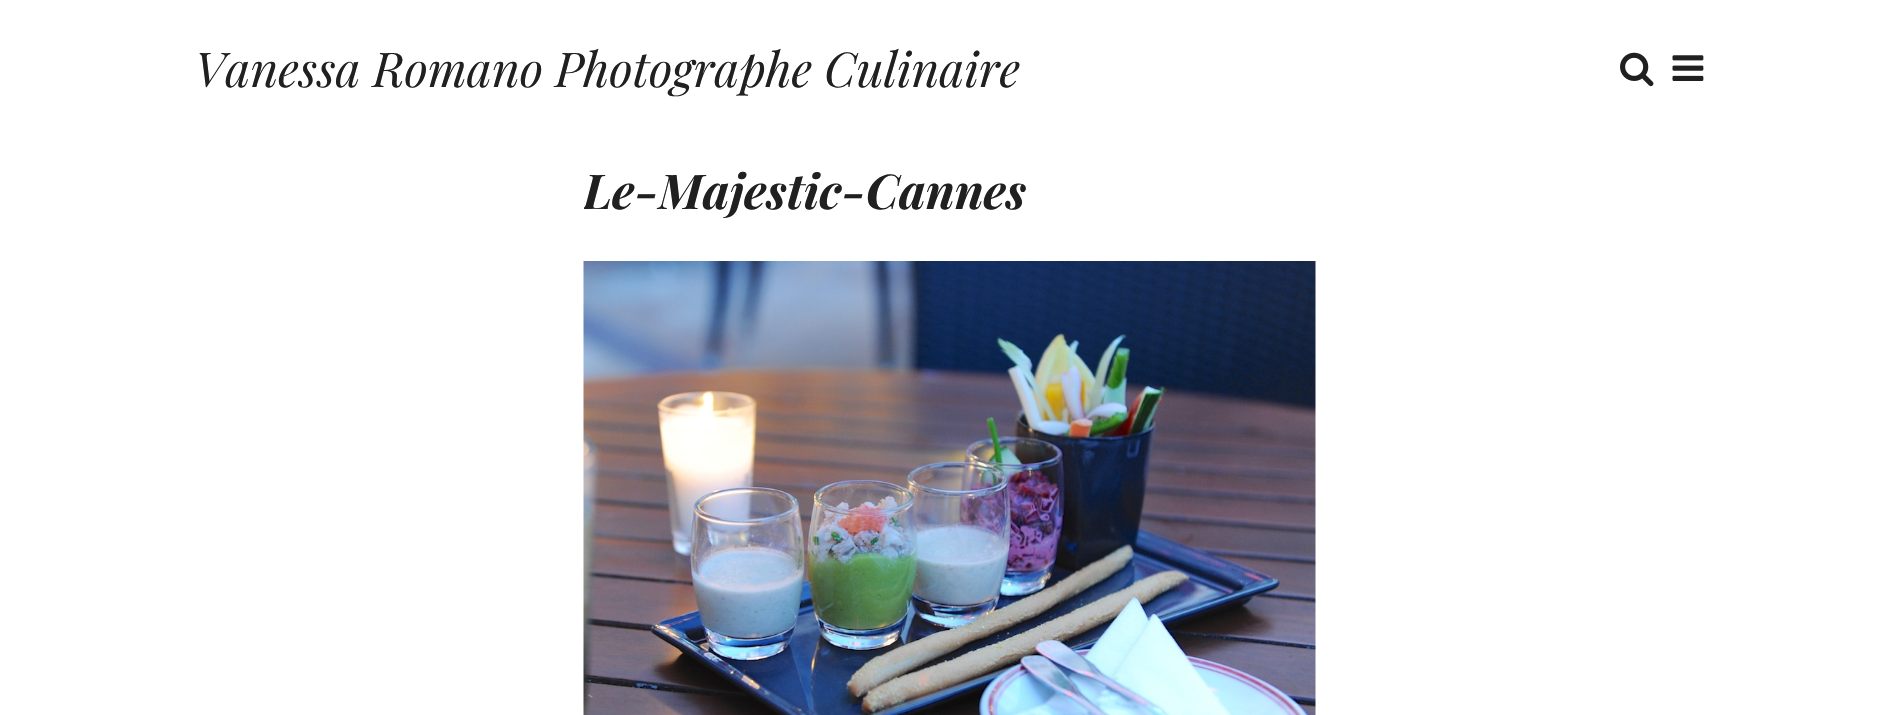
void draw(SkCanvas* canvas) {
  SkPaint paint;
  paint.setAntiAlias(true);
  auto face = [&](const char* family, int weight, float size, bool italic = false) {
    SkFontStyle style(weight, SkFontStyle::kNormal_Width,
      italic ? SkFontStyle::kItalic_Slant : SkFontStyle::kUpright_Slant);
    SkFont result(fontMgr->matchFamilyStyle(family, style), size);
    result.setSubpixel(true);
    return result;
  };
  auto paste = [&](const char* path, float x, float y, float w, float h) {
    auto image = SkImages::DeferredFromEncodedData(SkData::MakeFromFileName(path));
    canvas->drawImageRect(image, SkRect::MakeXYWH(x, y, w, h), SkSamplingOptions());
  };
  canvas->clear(0xffffffff);
  paste("img/1.png", 1620, 52, 34, 35);
  paste("img/2.png", 1672, 55, 32, 26);
  paste("img/3.png", 583, 261, 733, 454);
  auto f0 = face("Playfair Display", 400, 48, true);
  paint.setColor(0xff202020);
  canvas->drawString("Vanessa Romano Photographe Culinaire", 195, 87, f0, paint);
  canvas->save();
  canvas->clipRect(SkRect::MakeXYWH(584, 153, 732, 72));
  auto f1 = face("Playfair Display", 700, 48, true);
  canvas->drawString("Le-Majestic-Cannes", 583, 209, f1, paint);
  canvas->restore();
}
